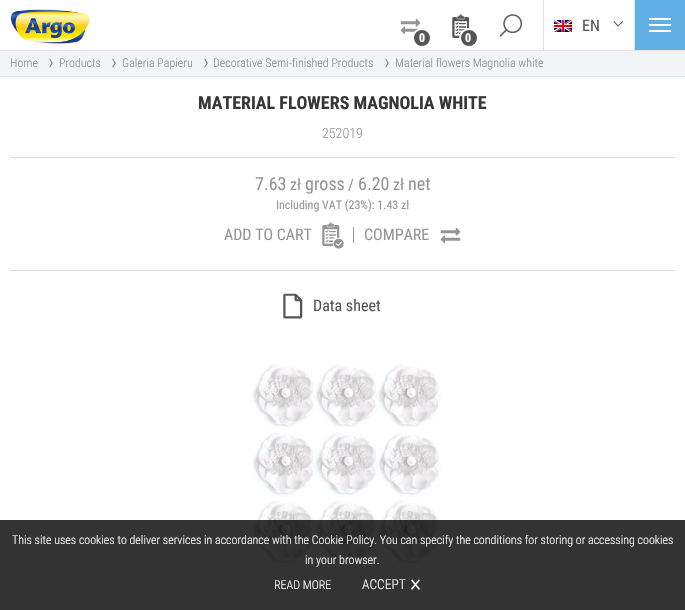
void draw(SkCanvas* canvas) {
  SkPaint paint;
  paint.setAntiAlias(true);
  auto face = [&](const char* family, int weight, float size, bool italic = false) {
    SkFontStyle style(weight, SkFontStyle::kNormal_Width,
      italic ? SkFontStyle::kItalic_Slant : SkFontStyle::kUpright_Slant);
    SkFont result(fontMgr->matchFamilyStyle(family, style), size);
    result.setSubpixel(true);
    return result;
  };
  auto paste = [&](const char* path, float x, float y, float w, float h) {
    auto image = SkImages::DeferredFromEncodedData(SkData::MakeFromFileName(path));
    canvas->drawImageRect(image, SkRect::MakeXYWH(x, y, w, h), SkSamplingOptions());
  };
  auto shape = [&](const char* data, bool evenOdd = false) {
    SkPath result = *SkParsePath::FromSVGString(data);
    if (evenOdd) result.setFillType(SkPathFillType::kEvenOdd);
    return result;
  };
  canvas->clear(0xffffffff);
  paint.setColor(0xffe1e1e1);
  canvas->drawRect(SkRect::MakeXYWH(0, 50, 685, 1), paint);
  paste("img/1.png", 10, 9, 80, 35);
  paste("img/2.png", 499, 14, 23, 23);
  canvas->drawRect(SkRect::MakeXYWH(634, 0, 1, 50), paint);
  canvas->drawRect(SkRect::MakeXYWH(543, 0, 1, 50), paint);
  paste("img/3.png", 554, 20, 18, 12);
  paint.setColor(0xff555555);
  canvas->drawPath(shape("M622.5 21L623 22L618 26.5L617.5 26Z"), paint);
  canvas->drawPath(shape("M614 21L619 26L618 26.5L613.5 22Z"), paint);
  {
    const struct { float x, y, w, h; SkColor color; } items[] = {
      {635, 0, 50, 50, 0xff60b0e6},
      {649, 18, 22, 2, 0xffffffff},
      {649, 24, 22, 2, 0xffffffff},
      {649, 30, 22, 2, 0xffffffff},
    };
    for (auto [x, y, w, h, color] : items) {
      paint.setColor(color);
      canvas->drawRect(SkRect::MakeXYWH(x, y, w, h), paint);
    }
  }
  paste("img/4.png", 400, 18, 21, 17);
  paint.setColor(0xff555555);
  canvas->drawCircle(422, 38, 9, paint);
  paint.setStroke(true);
  paint.setStrokeWidth(2);
  paint.setColor(0xffffffff);
  canvas->drawCircle(422, 38, 9, paint);
  paste("img/5.png", 452, 14, 17, 24);
  paint.setStroke(false);
  paint.setColor(0xff555555);
  canvas->drawCircle(469, 38, 9, paint);
  paint.setStroke(true);
  paint.setColor(0xffffffff);
  canvas->drawCircle(469, 38, 9, paint);
  paint.setStroke(false);
  {
    const struct { float x, y, w, h; SkColor color; } items[] = {
      {0, 51, 685, 25, 0xfff2f5f8},
      {0, 76, 685, 1, 0xffe3e3e3},
      {10, 157, 665, 1, 0xffd7dce0},
      {10, 270, 665, 1, 0xffd7dce0},
    };
    for (auto [x, y, w, h, color] : items) {
      paint.setColor(color);
      canvas->drawRect(SkRect::MakeXYWH(x, y, w, h), paint);
    }
  }
  paste("img/6.png", 322, 222, 22, 27);
  paint.setColor(0xff959595);
  canvas->drawRect(SkRect::MakeXYWH(353, 227, 1, 16), paint);
  paste("img/4.png", 440, 227, 21, 17);
  paste("img/7.png", 283, 293, 20, 26);
  paste("img/8.png", 252, 364, 189, 200);
  paint.setColor(0xcc000000);
  canvas->drawRect(SkRect::MakeXYWH(0, 520, 685, 90), paint);
  auto f0 = face("Roboto Condensed", 400, 16);
  paint.setColor(0xff555555);
  canvas->drawString("EN", 582, 31, f0, paint);
  auto f1 = face("Roboto Condensed", 700, 12);
  paint.setColor(0xffffffff);
  canvas->drawString("0", 419, 42, f1, paint);
  canvas->drawString("0", 465, 42, f1, paint);
  auto f2 = face("Roboto Condensed", 300, 12);
  paint.setColor(0xff898989);
  canvas->drawString("Home", 10, 67, f2, paint);
  auto f3 = face("Roboto Condensed", 300, 22);
  canvas->drawString("›", 48, 69, f3, paint);
  canvas->drawString("Products", 59, 67, f2, paint);
  canvas->drawString("›", 111, 69, f3, paint);
  canvas->drawString("Galeria Papieru", 122, 67, f2, paint);
  canvas->drawString("›", 203, 69, f3, paint);
  canvas->drawString("Decorative Semi-finished Products", 213, 67, f2, paint);
  canvas->drawString("›", 384, 69, f3, paint);
  canvas->drawString("Material flowers Magnolia white", 395, 67, f2, paint);
  auto f4 = face("Roboto Condensed", 700, 18);
  paint.setColor(0xff363636);
  canvas->drawString("MATERIAL FLOWERS MAGNOLIA WHITE", 198, 109, f4, paint);
  auto f5 = face("Roboto Condensed", 300, 14);
  paint.setColor(0xff959595);
  canvas->drawString("252019", 322, 138, f5, paint);
  auto f6 = face("Roboto Condensed", 400, 18);
  canvas->drawString("7.63", 255, 190, f6, paint);
  canvas->drawString("zł", 290, 190, f0, paint);
  canvas->drawString("gross", 305, 190, f6, paint);
  canvas->drawString("/", 348, 190, f0, paint);
  canvas->drawString("6.20", 358, 190, f6, paint);
  canvas->drawString("zł", 393, 190, f0, paint);
  canvas->drawString("net", 408, 190, f6, paint);
  auto f7 = face("Roboto Condensed", 400, 12);
  canvas->drawString("Including VAT (23%): 1.43 zł", 276, 209, f7, paint);
  canvas->drawString("ADD TO CART", 224, 240, f0, paint);
  canvas->drawString("COMPARE", 364, 240, f0, paint);
  paint.setColor(0xff555555);
  canvas->drawString("Data sheet", 313, 311, f0, paint);
  paint.setColor(0xffffffff);
  {
    const struct { const char* s; float x, y; } items[] = {
      {"This site uses cookies to deliver services in accordance with the Cookie Policy. You can specify the conditions for storing or accessing cookies", 12, 544},
      {"in your browser.", 305, 564},
      {"READ MORE", 274, 589},
    };
    for (auto [s, x, y] : items) {
      canvas->drawString(s, x, y, f2, paint);
    }
  }
  auto f8 = face("Roboto Condensed", 300, 13.5f);
  canvas->drawString("ACCEPT", 362, 589, f8, paint);
  auto f9 = face("Roboto Condensed", 300, 24);
  canvas->drawString("×", 410, 591, f9, paint);
}
